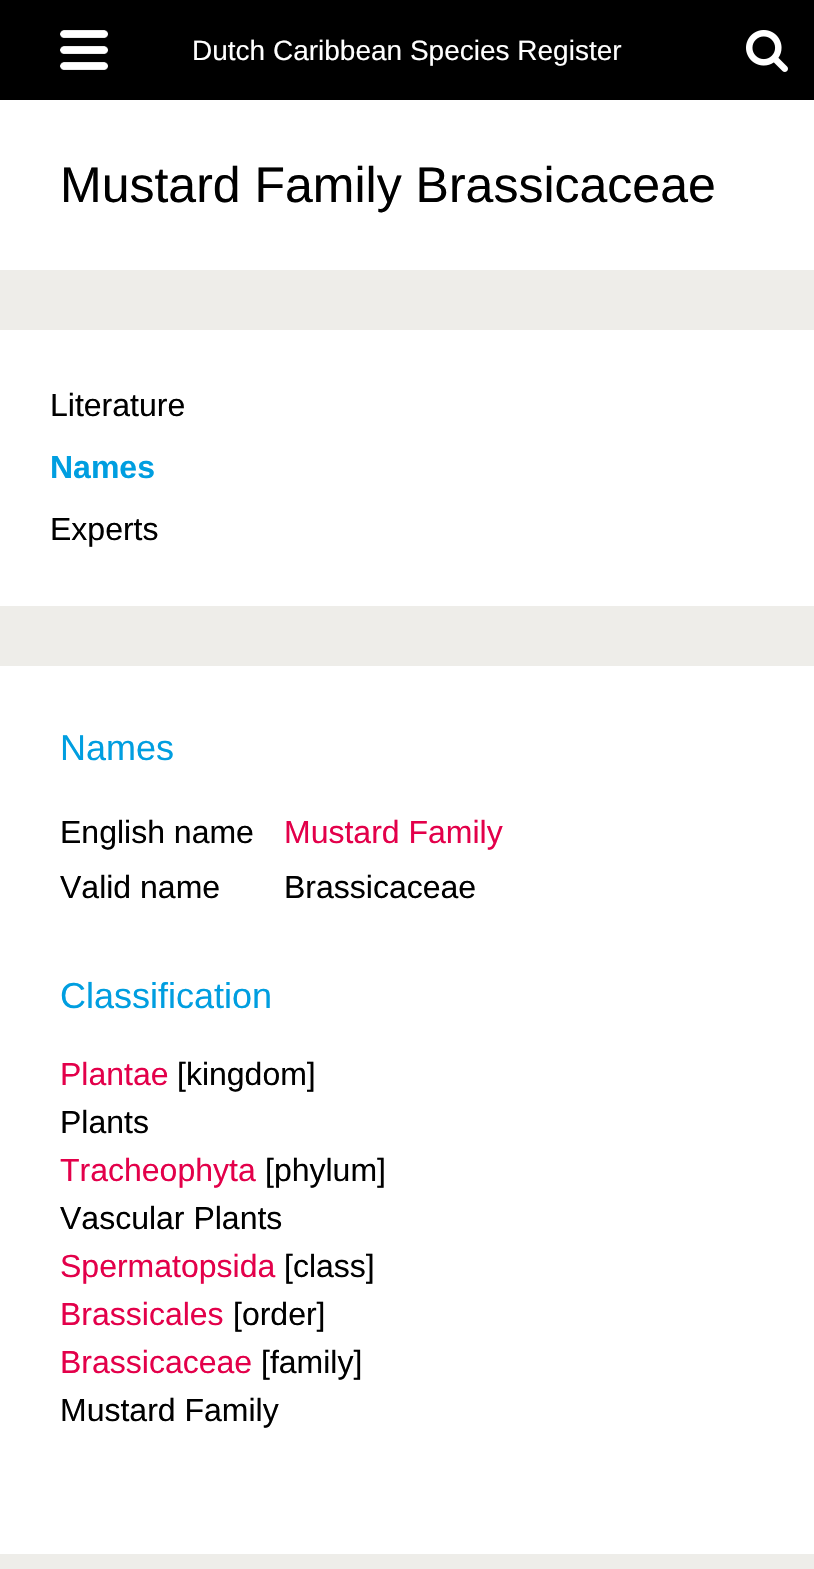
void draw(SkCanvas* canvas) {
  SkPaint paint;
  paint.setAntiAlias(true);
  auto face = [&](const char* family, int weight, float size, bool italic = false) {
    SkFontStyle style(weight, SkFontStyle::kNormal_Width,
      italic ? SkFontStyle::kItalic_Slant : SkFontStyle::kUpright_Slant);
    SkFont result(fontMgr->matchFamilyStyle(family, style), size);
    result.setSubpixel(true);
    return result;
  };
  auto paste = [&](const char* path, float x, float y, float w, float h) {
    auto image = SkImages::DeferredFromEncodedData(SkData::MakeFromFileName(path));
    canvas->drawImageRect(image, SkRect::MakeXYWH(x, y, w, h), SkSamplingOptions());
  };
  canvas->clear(0xffeeede9);
  paint.setColor(0xff000000);
  canvas->drawRect(SkRect::MakeXYWH(0, 0, 814, 100), paint);
  paste("img/1.png", 60, 30, 48, 40);
  paste("img/2.png", 746, 30, 42, 42);
  {
    const struct { float x, y, w, h; SkColor color; } items[] = {
      {0, 100, 814, 170, 0xffffffff},
      {0, 330, 814, 276, 0xffffffff},
      {0, 666, 814, 888, 0xffffffff},
    };
    for (auto [x, y, w, h, color] : items) {
      paint.setColor(color);
      canvas->drawRect(SkRect::MakeXYWH(x, y, w, h), paint);
    }
  }
  auto f0 = face("Liberation Sans", 400, 28);
  canvas->drawString("Dutch Caribbean Species Register", 192, 60, f0, paint);
  auto f1 = face("Liberation Sans", 400, 50);
  paint.setColor(0xff000000);
  canvas->drawString("Mustard Family Brassicaceae", 60, 202, f1, paint);
  auto f2 = face("Liberation Sans", 400, 32);
  canvas->drawString("Literature", 50, 416, f2, paint);
  auto f3 = face("Liberation Sans", 700, 32);
  paint.setColor(0xff009ee0);
  canvas->drawString("Names", 50, 478, f3, paint);
  paint.setColor(0xff000000);
  canvas->drawString("Experts", 50, 540, f2, paint);
  auto f4 = face("Liberation Sans", 400, 36);
  paint.setColor(0xff009ee0);
  canvas->drawString("Names", 60, 760, f4, paint);
  paint.setColor(0xff000000);
  canvas->drawString("English name", 60, 843, f2, paint);
  paint.setColor(0xffe3004a);
  canvas->drawString("Mustard Family", 284, 843, f2, paint);
  paint.setColor(0xff000000);
  canvas->drawString("Valid name", 60, 898, f2, paint);
  canvas->drawString("Brassicaceae", 284, 898, f2, paint);
  paint.setColor(0xff009ee0);
  canvas->drawString("Classification", 60, 1008, f4, paint);
  paint.setColor(0xffe3004a);
  canvas->drawString("Plantae", 60, 1085, f2, paint);
  paint.setColor(0xff000000);
  canvas->drawString("[kingdom]", 177, 1085, f2, paint);
  canvas->drawString("Plants", 60, 1133, f2, paint);
  paint.setColor(0xffe3004a);
  canvas->drawString("Tracheophyta", 60, 1181, f2, paint);
  paint.setColor(0xff000000);
  canvas->drawString("[phylum]", 265, 1181, f2, paint);
  canvas->drawString("Vascular Plants", 60, 1229, f2, paint);
  paint.setColor(0xffe3004a);
  canvas->drawString("Spermatopsida", 60, 1277, f2, paint);
  paint.setColor(0xff000000);
  canvas->drawString("[class]", 284, 1277, f2, paint);
  paint.setColor(0xffe3004a);
  canvas->drawString("Brassicales", 60, 1325, f2, paint);
  paint.setColor(0xff000000);
  canvas->drawString("[order]", 233, 1325, f2, paint);
  paint.setColor(0xffe3004a);
  canvas->drawString("Brassicaceae", 60, 1373, f2, paint);
  paint.setColor(0xff000000);
  canvas->drawString("[family]", 261, 1373, f2, paint);
  canvas->drawString("Mustard Family", 60, 1421, f2, paint);
}
